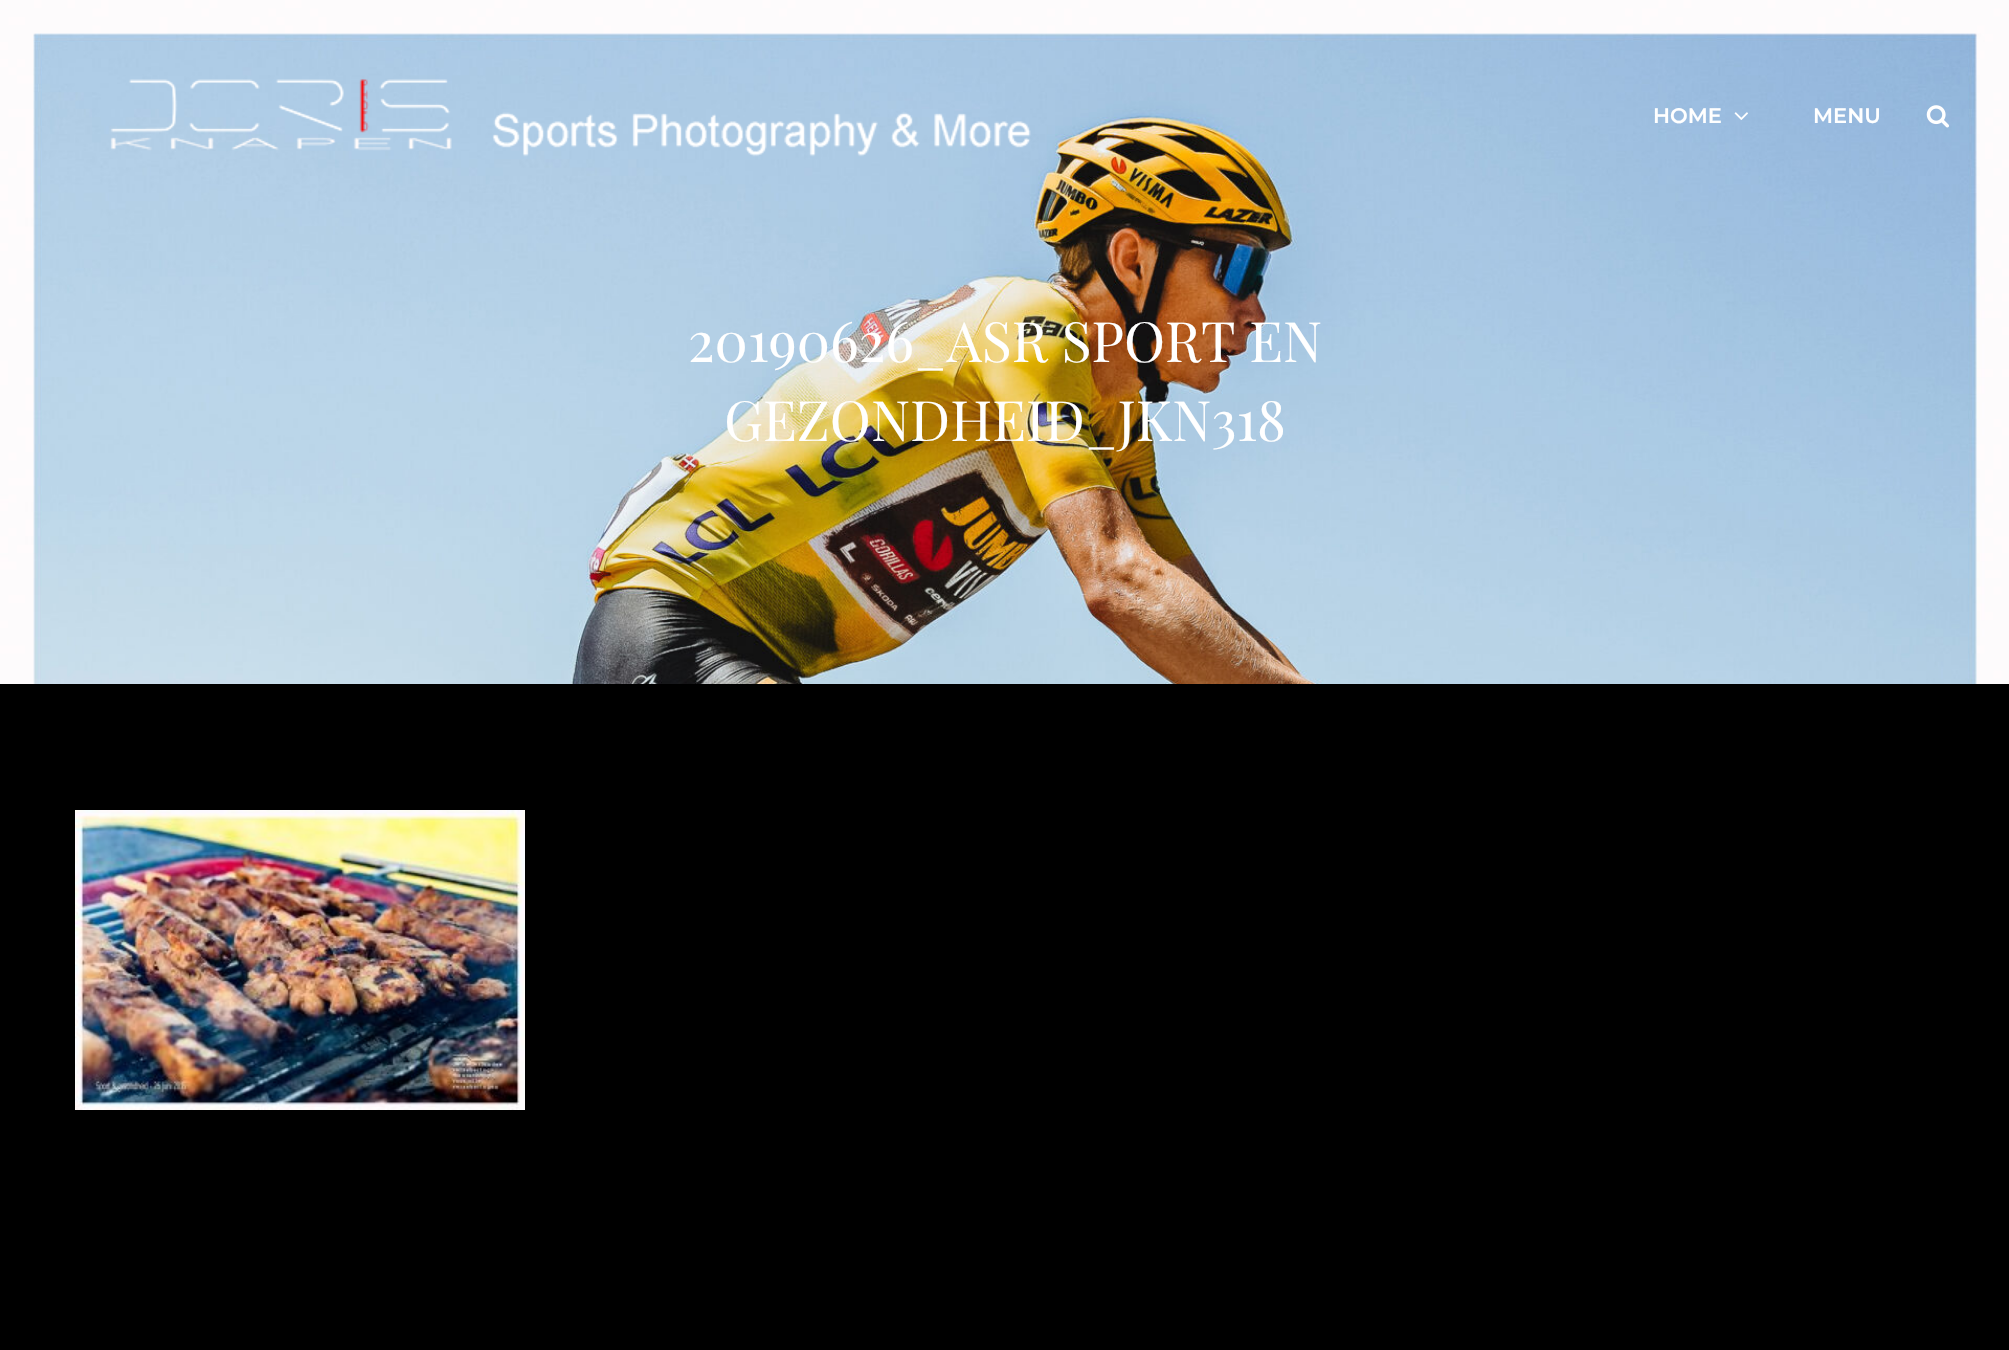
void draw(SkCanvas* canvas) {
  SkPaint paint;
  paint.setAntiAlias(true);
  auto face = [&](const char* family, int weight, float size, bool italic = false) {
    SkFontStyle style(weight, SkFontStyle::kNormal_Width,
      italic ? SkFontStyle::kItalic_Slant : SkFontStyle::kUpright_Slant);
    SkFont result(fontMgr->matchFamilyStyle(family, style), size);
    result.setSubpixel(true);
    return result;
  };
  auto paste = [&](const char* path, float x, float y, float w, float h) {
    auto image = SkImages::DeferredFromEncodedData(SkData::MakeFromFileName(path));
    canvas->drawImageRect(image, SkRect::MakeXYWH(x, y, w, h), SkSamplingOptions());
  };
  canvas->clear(0xff000000);
  paste("img/4.png", 0, 0, 2009, 684);
  paste("img/1.png", 110, 79, 921, 78);
  paste("img/2.png", 1734, 112, 14, 8);
  paste("img/3.png", 1926, 105, 23, 23);
  paste("img/5.png", 75, 810, 450, 300);
  auto f0 = face("Montserrat", 600, 21);
  paint.setColor(0xffffffff);
  canvas->drawString("HOME", 1653, 123, f0, paint);
  canvas->drawString("MENU", 1813, 123, f0, paint);
  auto f1 = face("Playfair Display", 400, 55.5f);
  canvas->drawString("20190626_ASR SPORT EN", 688, 362, f1, paint);
  canvas->drawString("GEZONDHEID_JKN318", 724, 441, f1, paint);
}
